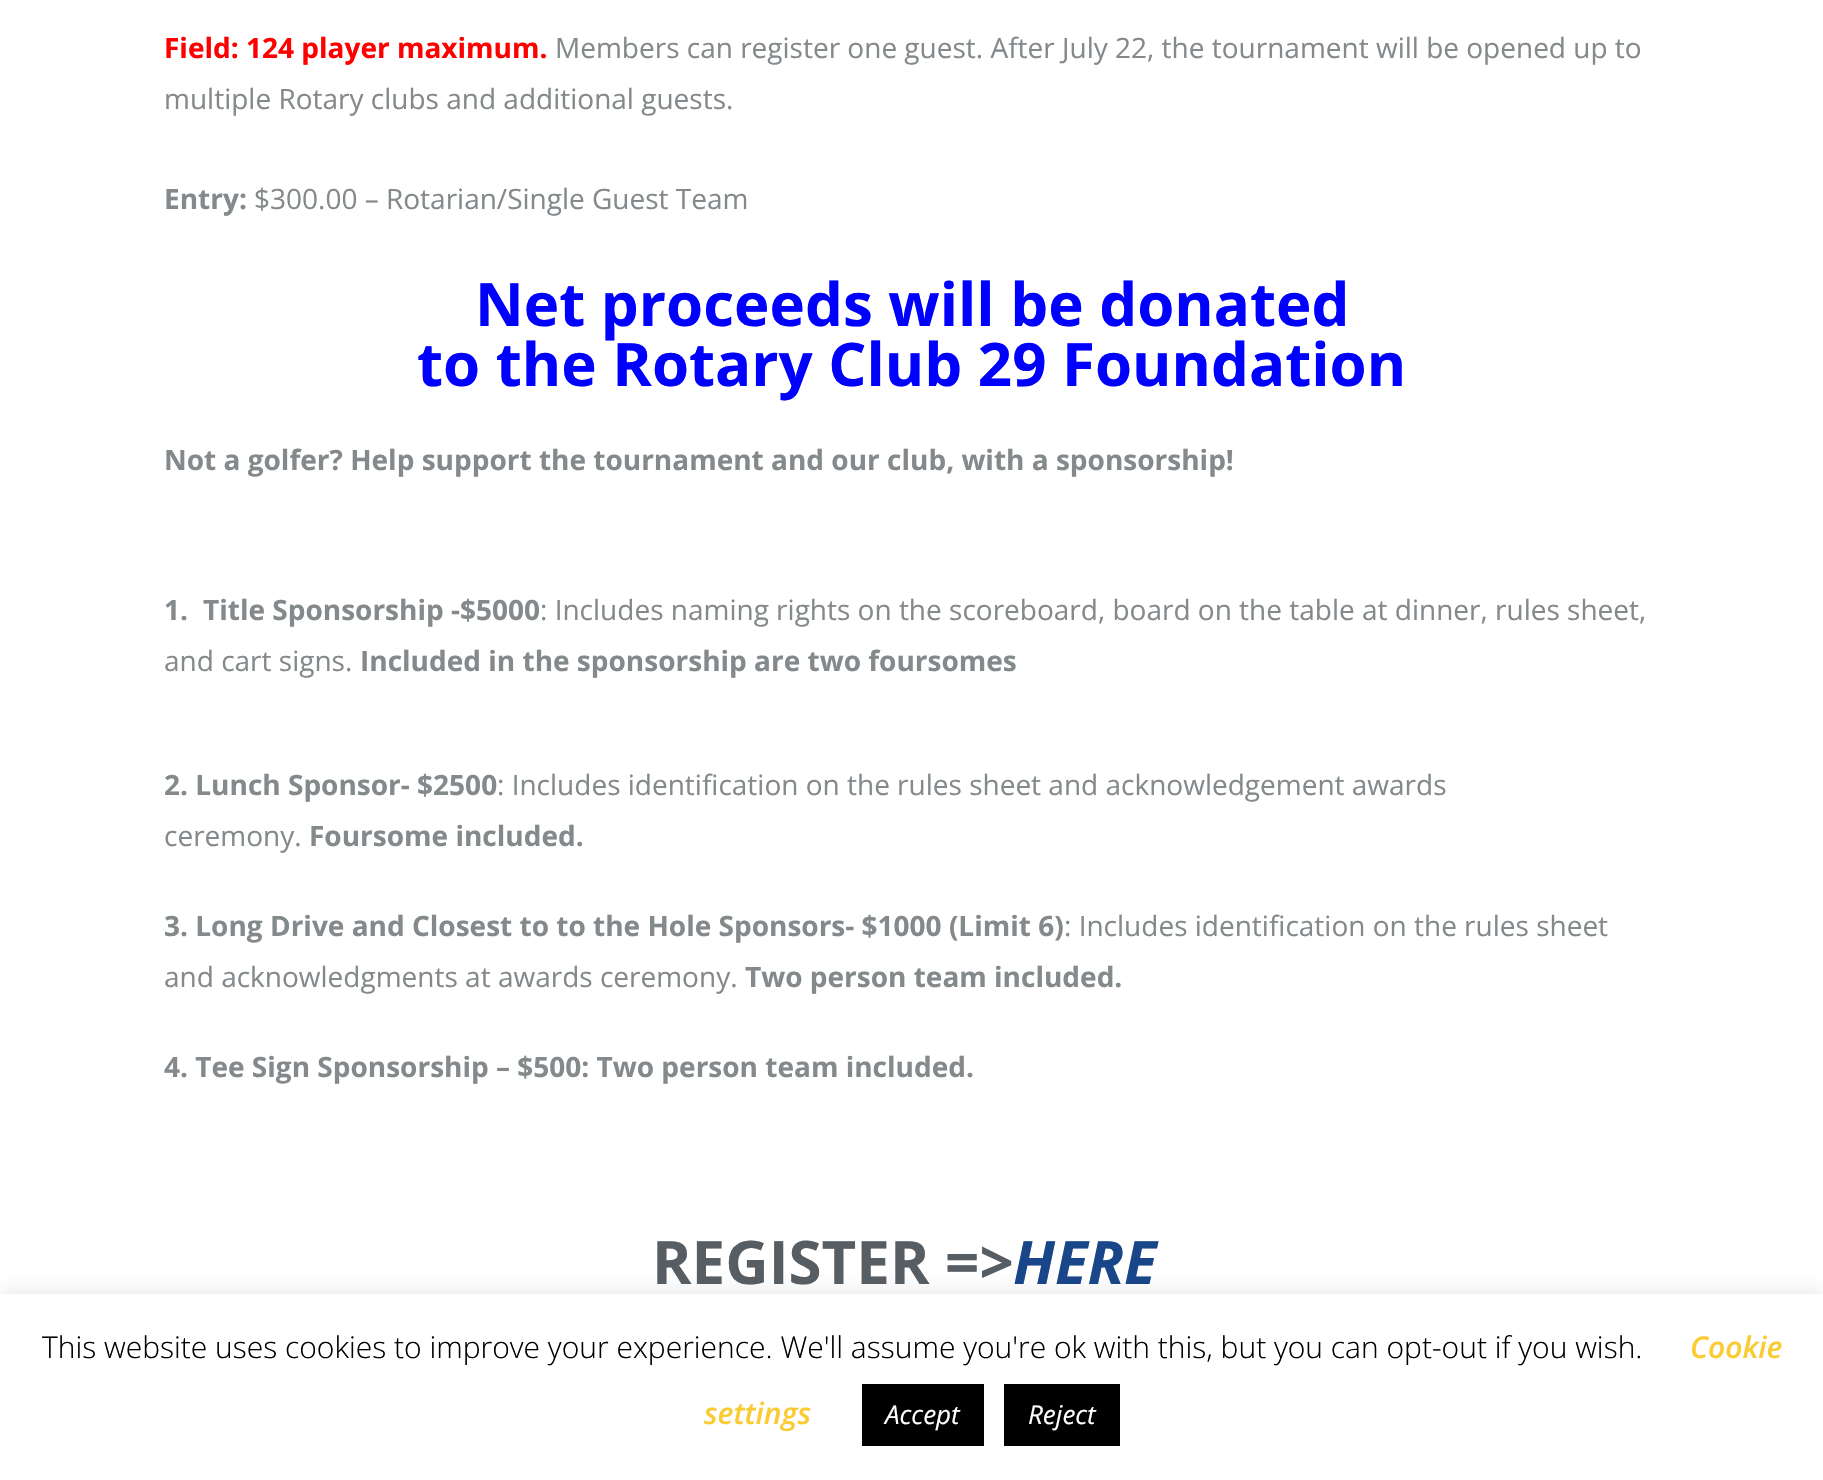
void draw(SkCanvas* canvas) {
  SkPaint paint;
  paint.setAntiAlias(true);
  auto face = [&](const char* family, int weight, float size, bool italic = false) {
    SkFontStyle style(weight, SkFontStyle::kNormal_Width,
      italic ? SkFontStyle::kItalic_Slant : SkFontStyle::kUpright_Slant);
    SkFont result(fontMgr->matchFamilyStyle(family, style), size);
    result.setSubpixel(true);
    return result;
  };
  canvas->clear(0xffffffff);
  paint.setColor(0x4dacabab);
  paint.setMaskFilter(SkMaskFilter::MakeBlur(kNormal_SkBlurStyle, 10));
  canvas->drawRect(SkRect::MakeXYWH(0, 1292, 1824, 186), paint);
  paint.setMaskFilter(nullptr);
  {
    const struct { float x, y, w, h; SkColor color; } items[] = {
      {0, 1294, 1823, 186, 0xffffffff},
      {862, 1384, 122, 62, 0xff000000},
      {1004, 1384, 116, 62, 0xff000000},
    };
    for (auto [x, y, w, h, color] : items) {
      paint.setColor(color);
      canvas->drawRect(SkRect::MakeXYWH(x, y, w, h), paint);
    }
  }
  auto f0 = face("Open Sans", 700, 28);
  paint.setColor(0xffff0000);
  canvas->drawString("Field: 124 player maximum.", 164, 58, f0, paint);
  auto f1 = face("Open Sans", 400, 28);
  paint.setColor(0xff84898c);
  canvas->drawString("Members can register one guest. After July 22, the tournament will be opened up to", 555, 58, f1, paint);
  canvas->drawString("multiple Rotary clubs and additional guests.", 164, 109, f1, paint);
  canvas->drawString("Entry:", 164, 209, f0, paint);
  canvas->drawString("$300.00 – Rotarian/Single Guest Team", 254, 209, f1, paint);
  auto f2 = face("Open Sans", 700, 60);
  paint.setColor(0xff0000ff);
  canvas->drawString("Net proceeds will be donated", 475, 326, f2, paint);
  canvas->drawString("to the Rotary Club 29 Foundation", 417, 386, f2, paint);
  paint.setColor(0xff84898c);
  {
    const struct { const char* s; float x, y; } items[] = {
      {"Not a golfer? Help support the tournament and our club, with a sponsorship!", 164, 470},
      {"1.", 164, 620},
      {"Title Sponsorship -$5000", 203, 620},
    };
    for (auto [s, x, y] : items) {
      canvas->drawString(s, x, y, f0, paint);
    }
  }
  canvas->drawString(": Includes naming rights on the scoreboard, board on the table at dinner, rules sheet,", 540, 620, f1, paint);
  canvas->drawString("and cart signs.", 164, 671, f1, paint);
  canvas->drawString("Included in the sponsorship are two foursomes", 360, 671, f0, paint);
  canvas->drawString("2. Lunch Sponsor- $2500", 164, 795, f0, paint);
  canvas->drawString(": Includes identification on the rules sheet and acknowledgement awards", 497, 795, f1, paint);
  canvas->drawString("ceremony.", 164, 846, f1, paint);
  canvas->drawString("Foursome included.", 309, 846, f0, paint);
  canvas->drawString("3. Long Drive and Closest to to the Hole Sponsors- $1000 (Limit 6)", 164, 936, f0, paint);
  canvas->drawString(": Includes identification on the rules sheet", 1064, 936, f1, paint);
  canvas->drawString("and acknowledgments at awards ceremony.", 164, 987, f1, paint);
  canvas->drawString("Two person team included.", 745, 987, f0, paint);
  canvas->drawString("4. Tee Sign Sponsorship – $500: Two person team included.", 164, 1077, f0, paint);
  paint.setColor(0xff565d63);
  canvas->drawString("REGISTER =>", 652, 1284, f2, paint);
  auto f3 = face("Open Sans", 700, 60, true);
  paint.setColor(0xff194689);
  canvas->drawString("HERE", 1013, 1284, f3, paint);
  auto f4 = face("Open Sans", 300, 30);
  paint.setColor(0xff000000);
  canvas->drawString("This website uses cookies to improve your experience. We'll assume you're ok with this, but you can opt-out if you wish.", 42, 1358, f4, paint);
  auto f5 = face("Open Sans", 600, 30, true);
  paint.setColor(0xfffacb33);
  canvas->drawString("Cookie", 1690, 1358, f5, paint);
  canvas->drawString("settings", 704, 1424, f5, paint);
  auto f6 = face("Open Sans", 400, 26, true);
  paint.setColor(0xffffffff);
  canvas->drawString("Accept", 885, 1424, f6, paint);
  canvas->drawString("Reject", 1028, 1424, f6, paint);
}
